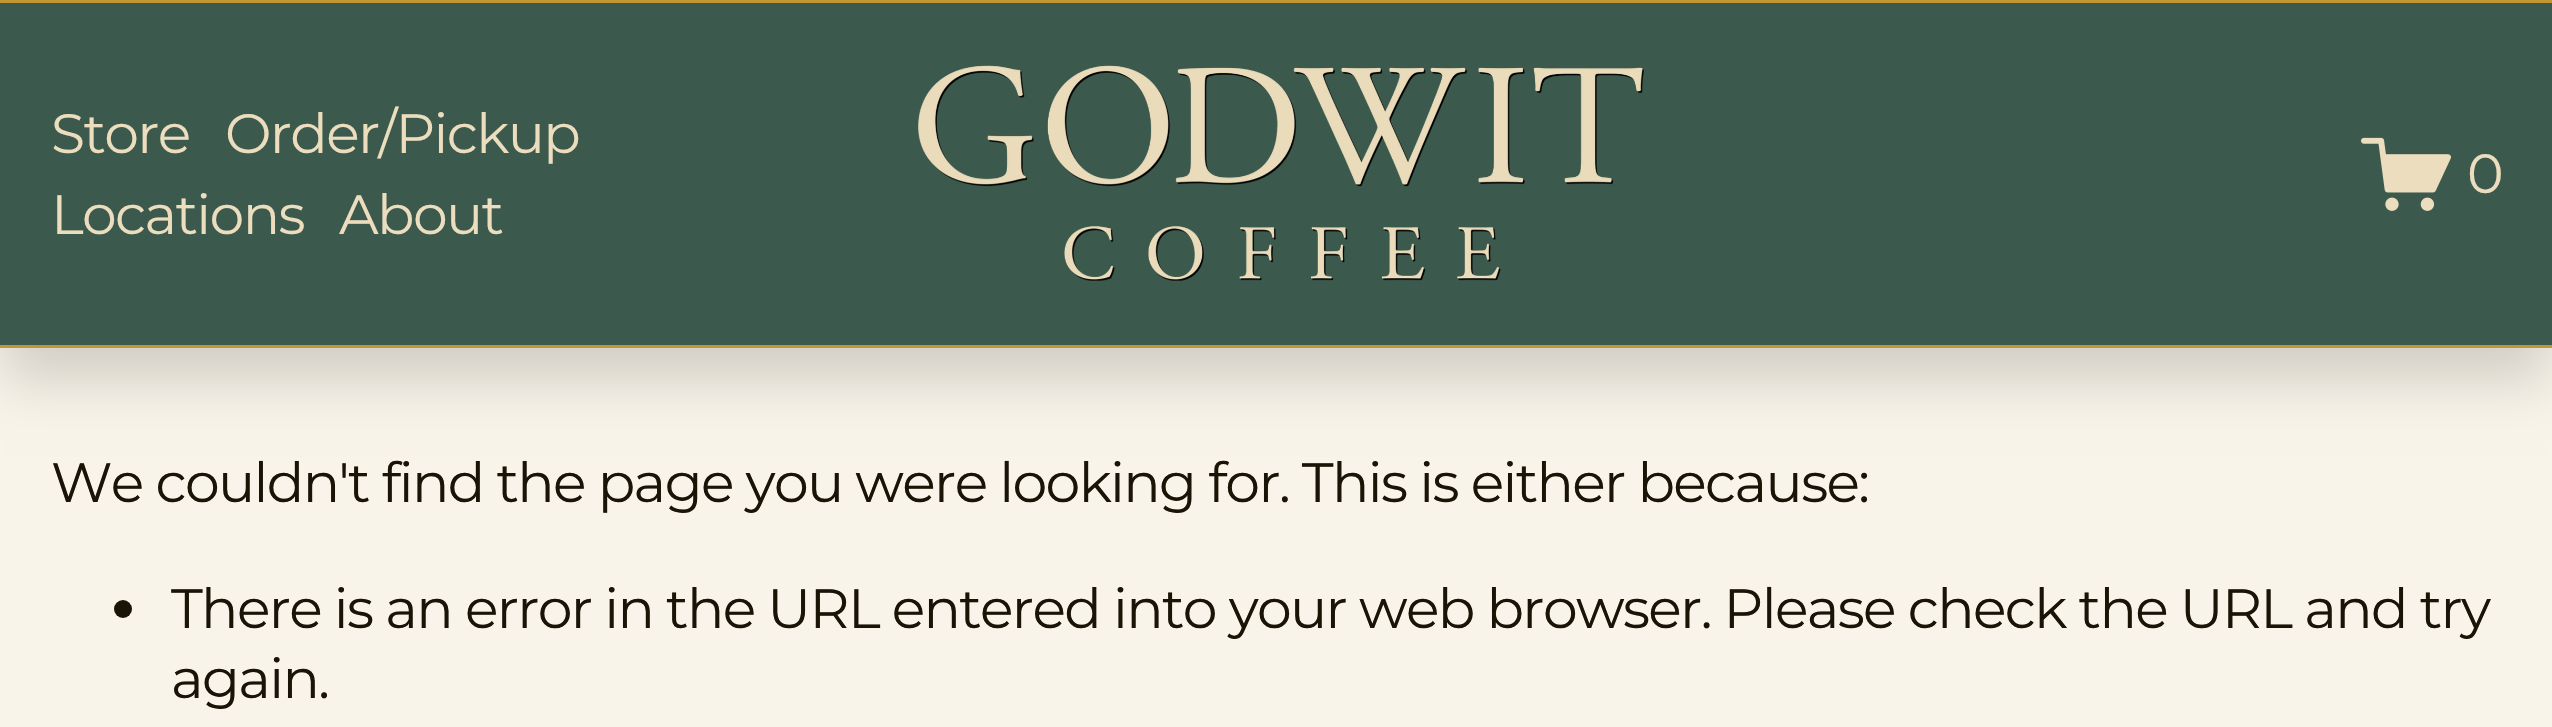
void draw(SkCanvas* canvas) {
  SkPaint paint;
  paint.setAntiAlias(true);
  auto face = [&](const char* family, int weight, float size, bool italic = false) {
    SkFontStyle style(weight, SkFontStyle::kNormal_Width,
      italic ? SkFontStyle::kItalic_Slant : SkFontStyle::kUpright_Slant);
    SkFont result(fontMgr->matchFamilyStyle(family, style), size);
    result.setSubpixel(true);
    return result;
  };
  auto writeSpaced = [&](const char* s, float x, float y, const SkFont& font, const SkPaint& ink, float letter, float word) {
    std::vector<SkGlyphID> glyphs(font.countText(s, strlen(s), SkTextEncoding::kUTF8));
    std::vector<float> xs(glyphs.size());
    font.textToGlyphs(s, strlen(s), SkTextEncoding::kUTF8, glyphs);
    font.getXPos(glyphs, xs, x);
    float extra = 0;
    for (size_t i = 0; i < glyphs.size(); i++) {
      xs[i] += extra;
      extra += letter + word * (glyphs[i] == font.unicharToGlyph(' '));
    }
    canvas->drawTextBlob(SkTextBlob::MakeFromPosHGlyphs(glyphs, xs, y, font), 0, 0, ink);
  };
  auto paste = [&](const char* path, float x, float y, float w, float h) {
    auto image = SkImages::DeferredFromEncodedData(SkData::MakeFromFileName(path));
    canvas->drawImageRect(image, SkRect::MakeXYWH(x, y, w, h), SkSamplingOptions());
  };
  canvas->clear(0xfff9f4ea);
  paint.setColor(0xffd3cfc6);
  paint.setMaskFilter(SkMaskFilter::MakeBlur(kNormal_SkBlurStyle, 25.5f));
  canvas->drawRect(SkRect::MakeXYWH(3, 39, 2547, 342), paint);
  paint.setMaskFilter(nullptr);
  {
    const struct { float x, y, w, h; SkColor color; } items[] = {
      {0, 0, 2552, 3, 0xffc19633},
      {0, 345, 2552, 3, 0xffc19633},
      {0, 3, 2552, 342, 0xff3b594d},
    };
    for (auto [x, y, w, h, color] : items) {
      paint.setColor(color);
      canvas->drawRect(SkRect::MakeXYWH(x, y, w, h), paint);
    }
  }
  paste("img/1.png", 918, 65, 726, 217);
  paste("img/2.png", 2361, 137, 90, 74);
  paint.setColor(0xff1a1407);
  canvas->drawCircle(123, 609, 9, paint);
  auto f0 = face("Montserrat", 400, 55.35f);
  paint.setColor(0xffebddbd);
  {
    const struct { const char* s; float x, y; } items[] = {
      {"Store", 51, 153},
      {"Order/Pickup", 225, 153},
      {"Locations", 51, 234},
      {"About", 339, 234},
      {"0", 2467, 193},
    };
    for (auto [s, x, y] : items) {
      writeSpaced(s, x, y, f0, paint, -1.65f, 0);
    }
  }
  paint.setColor(0xff1a1407);
  {
    const struct { const char* s; float x, y; } items[] = {
      {"We couldn't find the page you were looking for. This is either because:", 51, 502},
      {"There is an error in the URL entered into your web browser. Please check the URL and try", 171, 628},
      {"again.", 171, 698},
    };
    for (auto [s, x, y] : items) {
      writeSpaced(s, x, y, f0, paint, -1.65f, 0);
    }
  }
}
